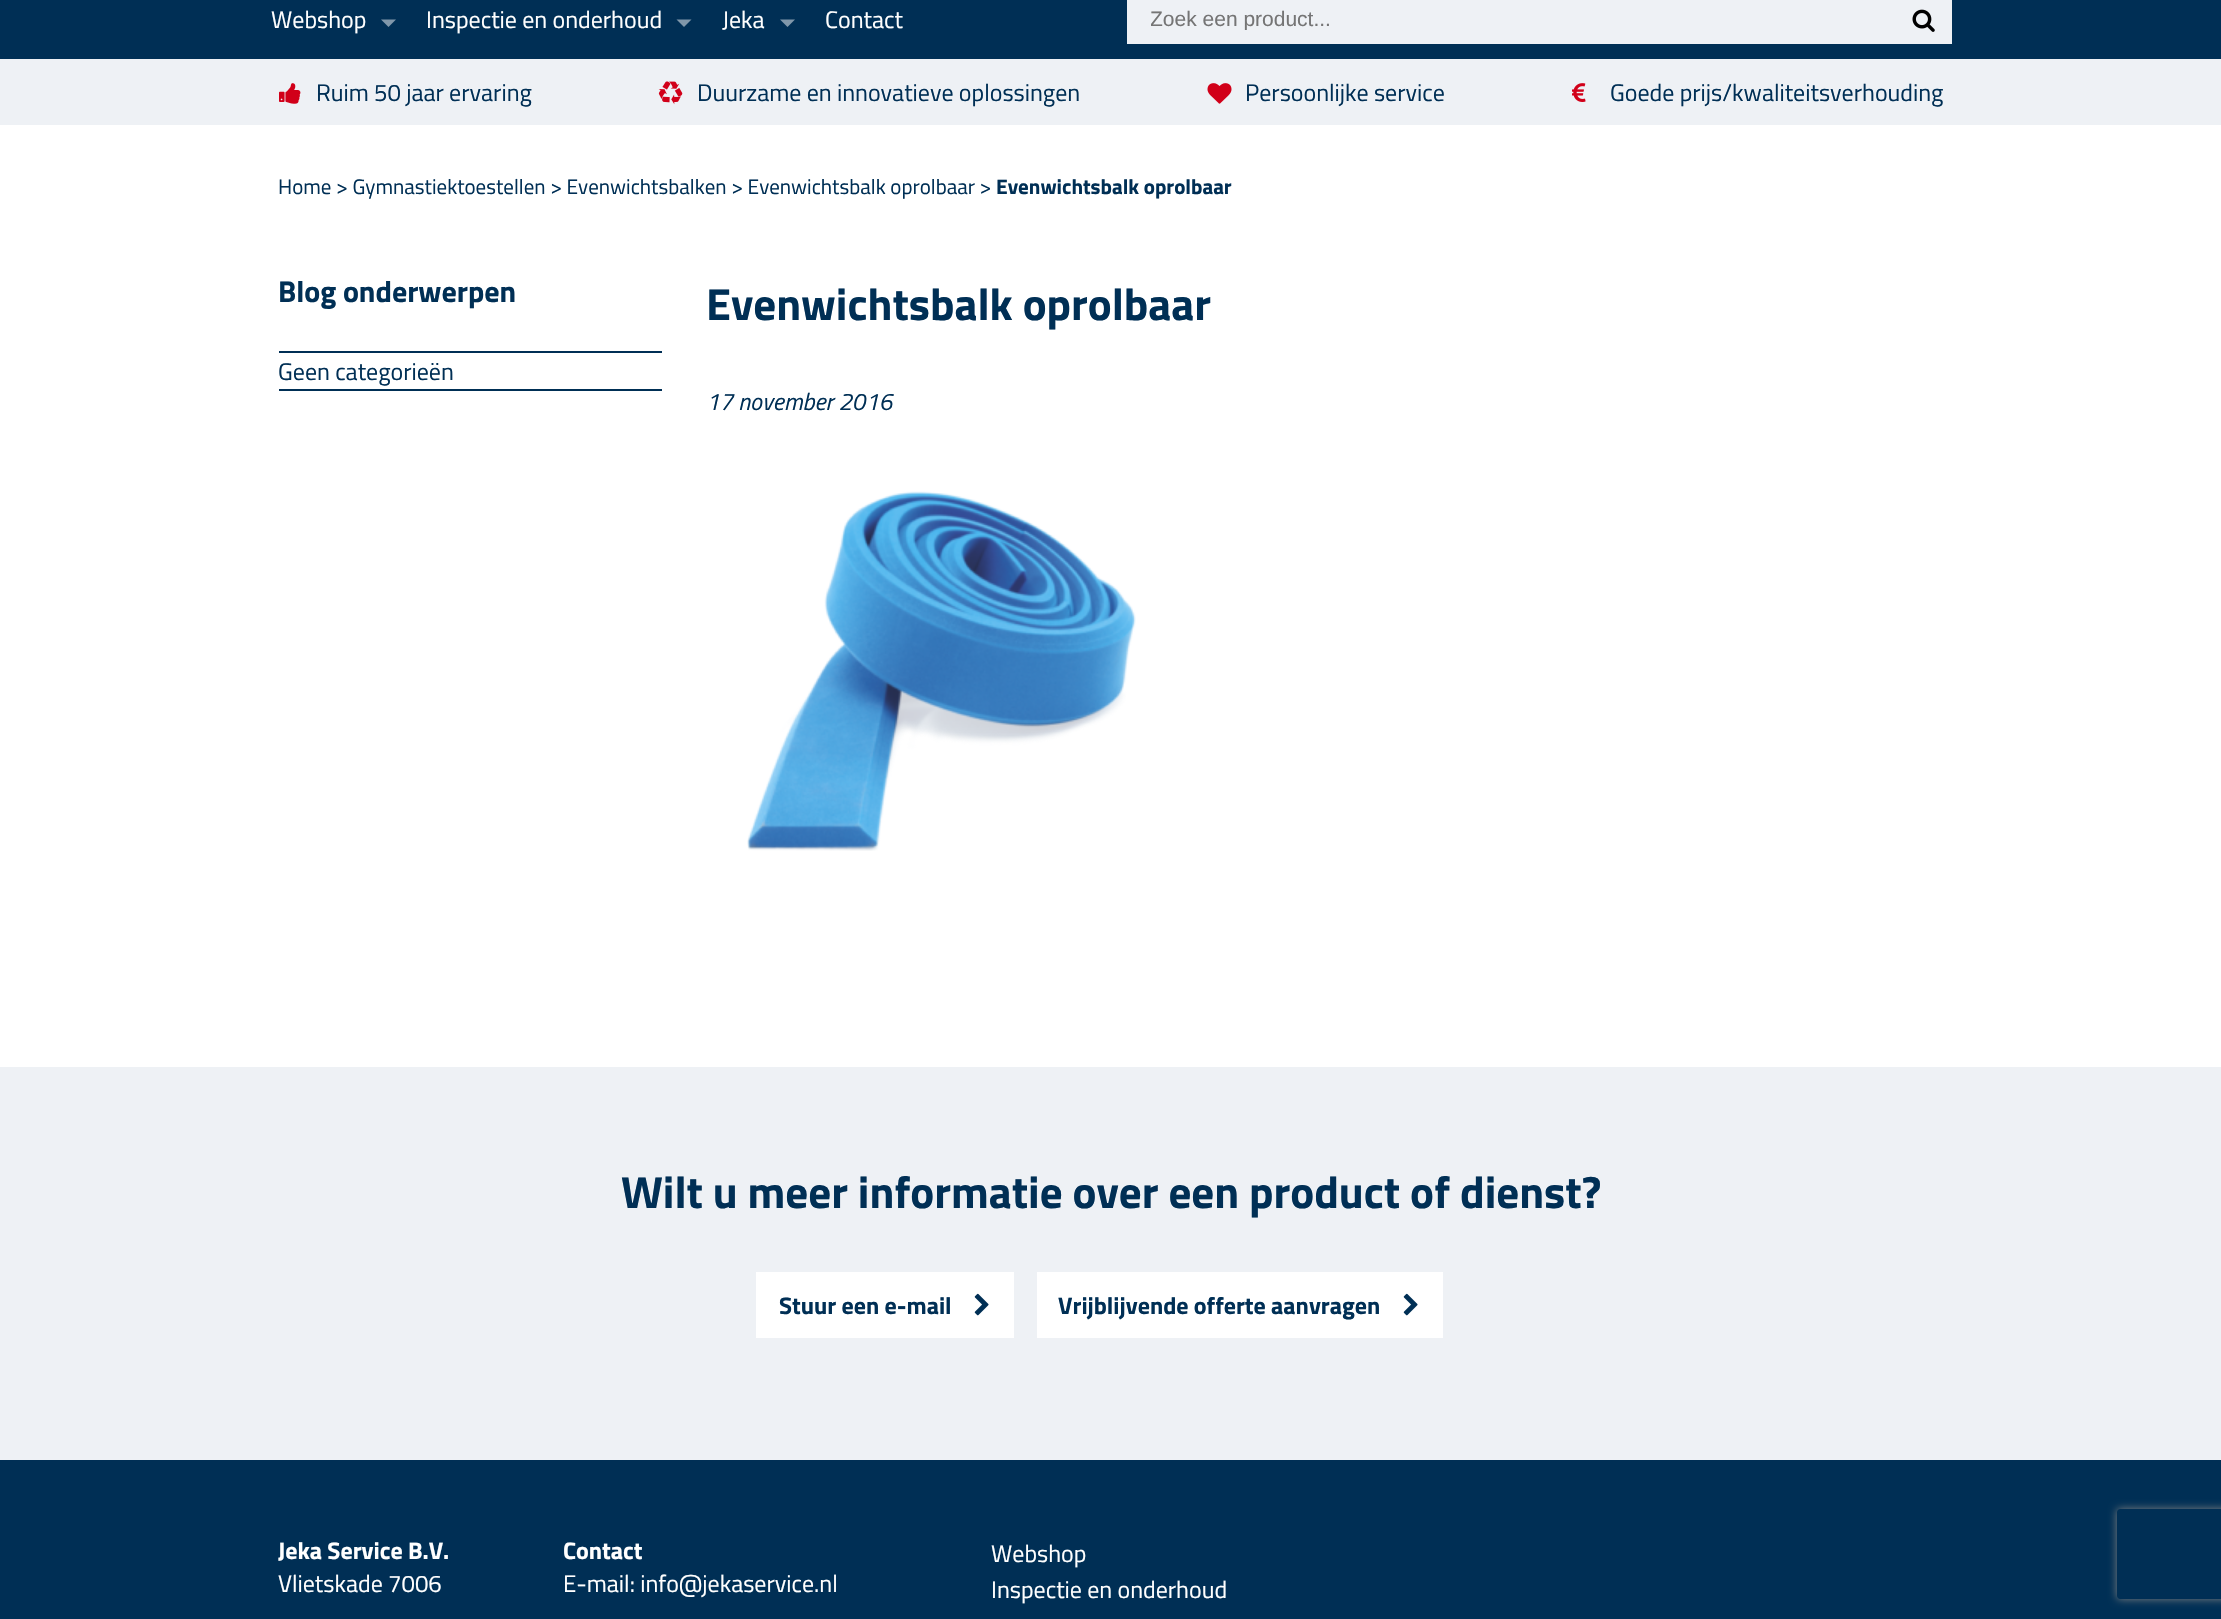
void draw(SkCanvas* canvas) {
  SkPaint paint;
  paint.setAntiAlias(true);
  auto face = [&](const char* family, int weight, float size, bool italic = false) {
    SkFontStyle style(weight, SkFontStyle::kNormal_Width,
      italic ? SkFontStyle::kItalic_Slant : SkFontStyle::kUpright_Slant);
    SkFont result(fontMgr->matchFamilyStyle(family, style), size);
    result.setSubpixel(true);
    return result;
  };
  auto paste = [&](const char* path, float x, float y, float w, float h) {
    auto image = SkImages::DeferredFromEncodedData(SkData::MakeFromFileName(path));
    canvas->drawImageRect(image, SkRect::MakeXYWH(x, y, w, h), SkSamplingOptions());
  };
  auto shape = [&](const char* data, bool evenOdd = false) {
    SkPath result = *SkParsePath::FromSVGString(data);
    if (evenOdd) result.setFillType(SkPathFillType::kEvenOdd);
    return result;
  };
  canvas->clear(0xffffffff);
  paint.setColor(0xff002f55);
  canvas->drawRect(SkRect::MakeXYWH(0, 0, 2221, 59), paint);
  paint.setColor(0xff8097aa);
  canvas->drawPath(shape("M381 19.5H396L388.5 27Z"), paint);
  canvas->drawPath(shape("M676.5 19.5H691.5L684 27Z"), paint);
  canvas->drawPath(shape("M780 19.5H795L787.5 27Z"), paint);
  paint.setColor(0xffeef1f5);
  canvas->drawRect(SkRect::MakeXYWH(1127, 0, 825, 44), paint);
  paste("img/1.png", 1912, 9, 23, 23);
  canvas->drawRect(SkRect::MakeXYWH(0, 59, 2221, 66), paint);
  paste("img/2.png", 279, 83, 22, 21);
  paste("img/3.png", 658, 81, 25, 24);
  paste("img/4.png", 1207, 83, 25, 21);
  paste("img/5.png", 1572, 83, 14, 19);
  paint.setColor(0xff002f55);
  canvas->drawRect(SkRect::MakeXYWH(279, 351, 383, 2), paint);
  canvas->drawRect(SkRect::MakeXYWH(279, 389, 383, 2), paint);
  paste("img/6.png", 747, 491, 389, 360);
  paint.setColor(0xffeef1f5);
  canvas->drawRect(SkRect::MakeXYWH(0, 1067, 2221, 393), paint);
  paint.setColor(0xffffffff);
  canvas->drawRect(SkRect::MakeXYWH(756, 1272, 258, 66), paint);
  paste("img/7.png", 974, 1293, 15, 23);
  canvas->drawRect(SkRect::MakeXYWH(1037, 1272, 406, 66), paint);
  paste("img/7.png", 1403, 1293, 15, 23);
  paint.setColor(0xff002f55);
  canvas->drawRect(SkRect::MakeXYWH(0, 1460, 2221, 159), paint);
  canvas->save();
  canvas->clipPath(shape("M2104 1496H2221V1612H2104ZM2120 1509H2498C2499.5 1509 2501 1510.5 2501 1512V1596C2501 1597.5 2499.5 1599 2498 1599H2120C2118.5 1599 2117 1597.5 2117 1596V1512C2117 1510.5 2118.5 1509 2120 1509Z", true), true);
  paint.setColor(0xff808080);
  paint.setMaskFilter(SkMaskFilter::MakeBlur(kNormal_SkBlurStyle, 4));
  canvas->drawRoundRect(SkRect::MakeXYWH(2117, 1509, 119, 90), 3, 3, paint);
  paint.setMaskFilter(nullptr);
  canvas->restore();
  auto f0 = face("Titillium", 400, 24);
  paint.setColor(0xffffffff);
  {
    const struct { const char* s; float x, y; } items[] = {
      {"Webshop", 271, 28},
      {"Inspectie en onderhoud", 426, 28},
      {"Jeka", 722, 28},
      {"Contact", 825, 28},
    };
    for (auto [s, x, y] : items) {
      canvas->drawString(s, x, y, f0, paint);
    }
  }
  canvas->save();
  canvas->clipRect(SkRect::MakeXYWH(1151, 6, 777, 24));
  auto f1 = face("Liberation Sans", 400, 21);
  paint.setColor(0xff757575);
  canvas->drawString("Zoek een product...", 1150, 26, f1, paint);
  canvas->restore();
  paint.setColor(0xff002f55);
  {
    const struct { const char* s; float x, y; } items[] = {
      {"Ruim 50 jaar ervaring", 316, 101},
      {"Duurzame en innovatieve oplossingen", 697, 101},
      {"Persoonlijke service", 1245, 101},
      {"Goede prijs/kwaliteitsverhouding", 1610, 101},
    };
    for (auto [s, x, y] : items) {
      canvas->drawString(s, x, y, f0, paint);
    }
  }
  auto f2 = face("Titillium", 400, 21);
  canvas->drawString("Home > Gymnastiektoestellen > Evenwichtsbalken > Evenwichtsbalk oprolbaar >", 278, 194, f2, paint);
  auto f3 = face("Titillium", 700, 21);
  canvas->drawString("Evenwichtsbalk oprolbaar", 996, 194, f3, paint);
  auto f4 = face("Titillium", 700, 30);
  canvas->drawString("Blog onderwerpen", 278, 302, f4, paint);
  canvas->drawString("Geen categorieën", 278, 380, f0, paint);
  auto f5 = face("Titillium", 700, 45);
  canvas->drawString("Evenwichtsbalk oprolbaar", 706, 320, f5, paint);
  auto f6 = face("Titillium", 400, 24, true);
  canvas->drawString("17 november 2016", 706, 410, f6, paint);
  canvas->drawString("Wilt u meer informatie over een product of dienst?", 621, 1208, f5, paint);
  auto f7 = face("Titillium", 700, 24);
  canvas->drawString("Stuur een e-mail", 779, 1314, f7, paint);
  canvas->drawString("Vrijblijvende offerte aanvragen", 1058, 1314, f7, paint);
  paint.setColor(0xffffffff);
  canvas->drawString("Jeka Service B.V.", 278, 1559, f7, paint);
  canvas->drawString("Vlietskade 7006", 278, 1592, f0, paint);
  canvas->drawString("Contact", 563, 1559, f7, paint);
  {
    const struct { const char* s; float x, y; } items[] = {
      {"E-mail: info@jekaservice.nl", 563, 1592},
      {"Webshop", 991, 1562},
      {"Inspectie en onderhoud", 991, 1598},
    };
    for (auto [s, x, y] : items) {
      canvas->drawString(s, x, y, f0, paint);
    }
  }
}
